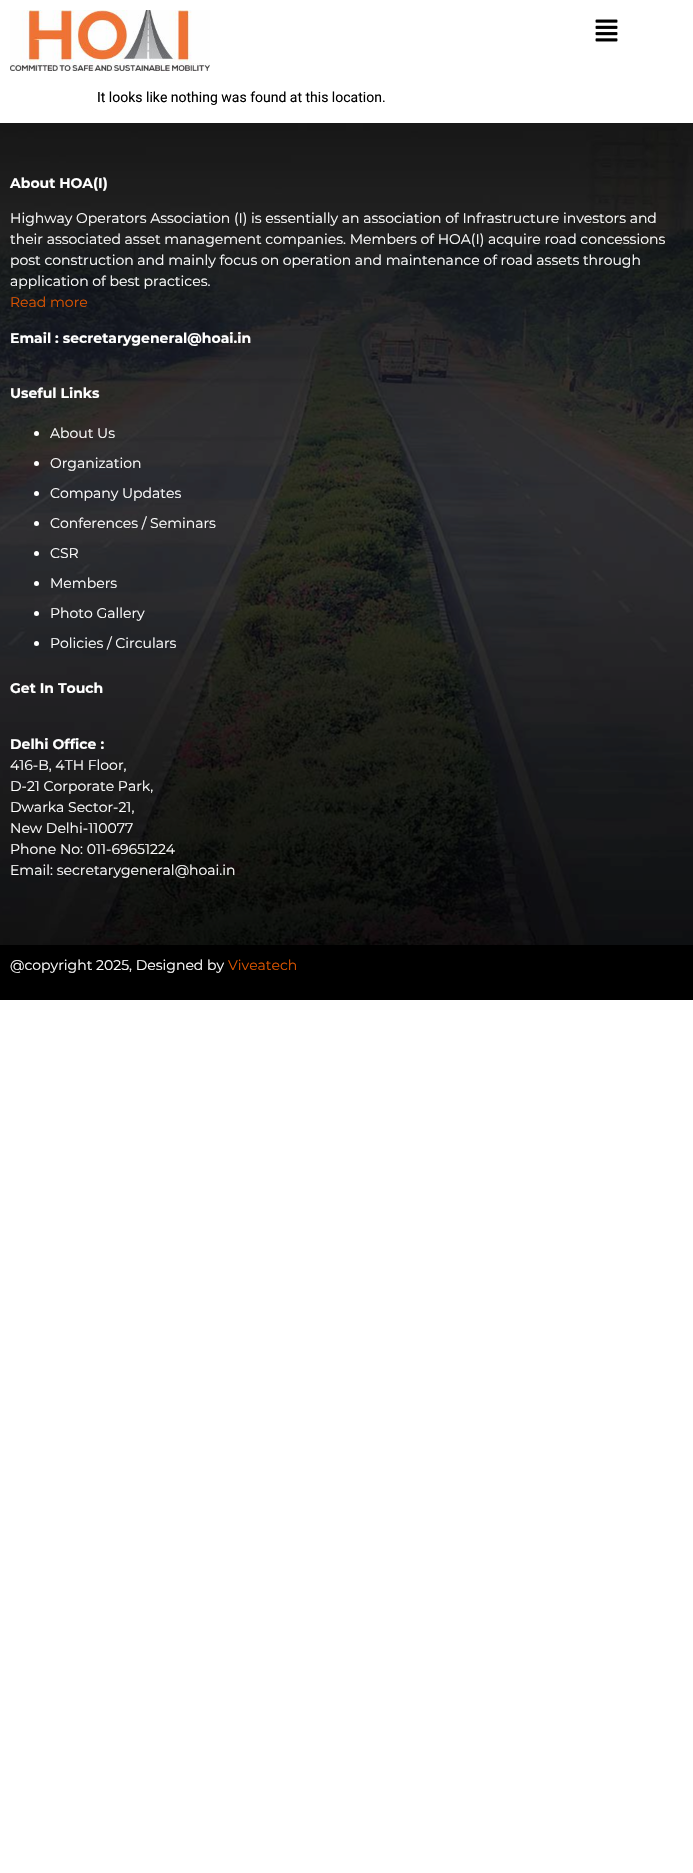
void draw(SkCanvas* canvas) {
  SkPaint paint;
  paint.setAntiAlias(true);
  auto face = [&](const char* family, int weight, float size, bool italic = false) {
    SkFontStyle style(weight, SkFontStyle::kNormal_Width,
      italic ? SkFontStyle::kItalic_Slant : SkFontStyle::kUpright_Slant);
    SkFont result(fontMgr->matchFamilyStyle(family, style), size);
    result.setSubpixel(true);
    return result;
  };
  auto paste = [&](const char* path, float x, float y, float w, float h) {
    auto image = SkImages::DeferredFromEncodedData(SkData::MakeFromFileName(path));
    canvas->drawImageRect(image, SkRect::MakeXYWH(x, y, w, h), SkSamplingOptions());
  };
  canvas->clear(0xffffffff);
  paste("img/1.png", 10, 10, 200, 61);
  paste("img/2.png", 595, 19, 23, 23);
  paste("img/3.png", 0, 123, 693, 822);
  paint.setColor(0xffffffff);
  canvas->drawCircle(36.5f, 433.5f, 2.5f, paint);
  canvas->drawCircle(36.5f, 463.5f, 2.5f, paint);
  canvas->drawCircle(36.5f, 493.5f, 2.5f, paint);
  canvas->drawCircle(36.5f, 523.5f, 2.5f, paint);
  canvas->drawCircle(36.5f, 553.5f, 2.5f, paint);
  canvas->drawCircle(36.5f, 583.5f, 2.5f, paint);
  canvas->drawCircle(36.5f, 613.5f, 2.5f, paint);
  canvas->drawCircle(36.5f, 643.5f, 2.5f, paint);
  paint.setColor(0xff000000);
  canvas->drawRect(SkRect::MakeXYWH(0, 945, 693, 55), paint);
  auto f0 = face("Roboto", 400, 14);
  canvas->drawString("It looks like nothing was found at this location.", 97, 102, f0, paint);
  auto f1 = face("Montserrat", 700, 14);
  paint.setColor(0xffffffff);
  canvas->drawString("About HOA(I)", 10, 188, f1, paint);
  auto f2 = face("Montserrat", 400, 14);
  {
    const struct { const char* s; float x, y; } items[] = {
      {"Highway Operators Association (I) is essentially an association of Infrastructure investors and", 10, 223},
      {"their associated asset management companies. Members of HOA(I) acquire road concessions", 10, 244},
      {"post construction and mainly focus on operation and maintenance of road assets through", 10, 265},
      {"application of best practices.", 10, 286},
    };
    for (auto [s, x, y] : items) {
      canvas->drawString(s, x, y, f2, paint);
    }
  }
  paint.setColor(0xffdb5400);
  canvas->drawString("Read more", 10, 307, f2, paint);
  paint.setColor(0xffffffff);
  canvas->drawString("Email : secretarygeneral@hoai.in", 10, 343, f1, paint);
  canvas->drawString("Useful Links", 10, 398, f1, paint);
  {
    const struct { const char* s; float x, y; } items[] = {
      {"About Us", 50, 438},
      {"Organization", 50, 468},
      {"Company Updates", 50, 498},
      {"Conferences / Seminars", 50, 528},
      {"CSR", 50, 558},
      {"Members", 50, 588},
      {"Photo Gallery", 50, 618},
      {"Policies / Circulars", 50, 648},
    };
    for (auto [s, x, y] : items) {
      canvas->drawString(s, x, y, f2, paint);
    }
  }
  canvas->drawString("Get In Touch", 10, 693, f1, paint);
  canvas->drawString("Delhi Office :", 10, 749, f1, paint);
  {
    const struct { const char* s; float x, y; } items[] = {
      {"416-B, 4TH Floor,", 10, 770},
      {"D-21 Corporate Park,", 10, 791},
      {"Dwarka Sector-21,", 10, 812},
      {"New Delhi-110077", 10, 833},
      {"Phone No: 011-69651224", 10, 854},
      {"Email: secretarygeneral@hoai.in", 10, 875},
      {"@copyright 2025, Designed by", 10, 970},
    };
    for (auto [s, x, y] : items) {
      canvas->drawString(s, x, y, f2, paint);
    }
  }
  paint.setColor(0xffdb5400);
  canvas->drawString("Viveatech", 228, 970, f2, paint);
}
